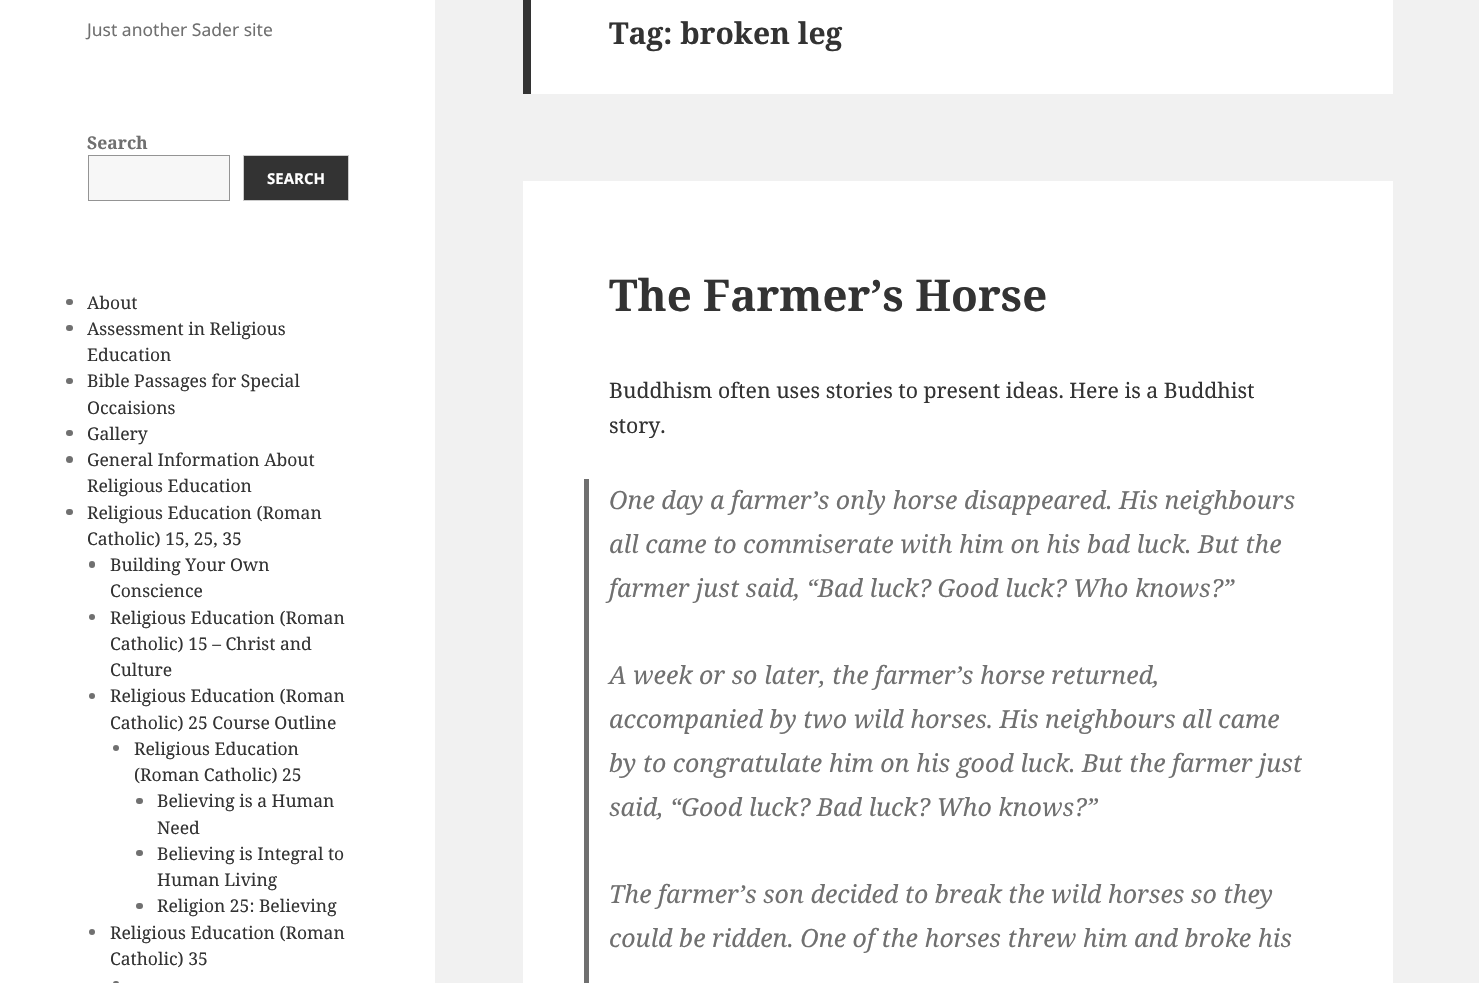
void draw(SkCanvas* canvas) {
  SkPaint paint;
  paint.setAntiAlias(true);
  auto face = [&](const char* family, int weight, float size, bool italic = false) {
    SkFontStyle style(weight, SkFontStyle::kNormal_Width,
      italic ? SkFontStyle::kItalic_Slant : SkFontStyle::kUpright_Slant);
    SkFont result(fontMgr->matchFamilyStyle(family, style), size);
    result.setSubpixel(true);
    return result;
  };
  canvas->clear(0xfff1f1f1);
  paint.setColor(0xffffffff);
  canvas->drawRect(SkRect::MakeXYWH(0, 0, 435, 983), paint);
  paint.setColor(0xfff7f7f7);
  canvas->drawRect(SkRect::MakeXYWH(88.5f, 155.5f, 141, 45), paint);
  paint.setStroke(true);
  paint.setStrokeWidth(1);
  paint.setColor(0xff949494);
  canvas->drawRect(SkRect::MakeXYWH(88.5f, 155.5f, 141, 45), paint);
  paint.setStroke(false);
  paint.setColor(0xff333333);
  canvas->drawRect(SkRect::MakeXYWH(243.5f, 155.5f, 105, 45), paint);
  paint.setStroke(true);
  paint.setColor(0xffcccccc);
  canvas->drawRect(SkRect::MakeXYWH(243.5f, 155.5f, 105, 45), paint);
  paint.setStroke(false);
  paint.setColor(0xff707070);
  canvas->drawRoundRect(SkRect::MakeXYWH(66, 299, 7, 6), 3, 3, paint);
  canvas->drawRoundRect(SkRect::MakeXYWH(66, 325, 7, 6), 3, 3, paint);
  canvas->drawRoundRect(SkRect::MakeXYWH(66, 378, 7, 6), 3, 3, paint);
  canvas->drawRoundRect(SkRect::MakeXYWH(66, 430, 7, 6), 3, 3, paint);
  canvas->drawCircle(69.5f, 459.5f, 3.5f, paint);
  canvas->drawRoundRect(SkRect::MakeXYWH(66, 509, 7, 6), 3, 3, paint);
  canvas->drawRoundRect(SkRect::MakeXYWH(89, 561, 6, 7), 3, 3, paint);
  canvas->drawCircle(92, 617, 3, paint);
  canvas->drawCircle(92, 696, 3, paint);
  canvas->drawCircle(116, 748, 3, paint);
  canvas->drawRoundRect(SkRect::MakeXYWH(136, 798, 7, 6), 3, 3, paint);
  canvas->drawRoundRect(SkRect::MakeXYWH(136, 850, 7, 6), 3, 3, paint);
  canvas->drawRoundRect(SkRect::MakeXYWH(136, 903, 7, 6), 3, 3, paint);
  canvas->drawCircle(92, 932, 3, paint);
  canvas->drawRoundRect(SkRect::MakeXYWH(113, 981, 6, 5), 3, 3, paint);
  {
    const struct { float x, y, w, h; SkColor color; } items[] = {
      {531, 0, 862, 94, 0xffffffff},
      {523, 0, 8, 94, 0xff333333},
      {523, 181, 870, 802, 0xffffffff},
      {584, 479, 5, 504, 0xff707070},
    };
    for (auto [x, y, w, h, color] : items) {
      paint.setColor(color);
      canvas->drawRect(SkRect::MakeXYWH(x, y, w, h), paint);
    }
  }
  auto f0 = face("Noto Sans", 400, 17.5f);
  canvas->drawString("Just another Sader site", 87, 36, f0, paint);
  auto f1 = face("Noto Serif", 700, 17.5f);
  canvas->drawString("Search", 87, 149, f1, paint);
  auto f2 = face("Noto Sans", 700, 15);
  paint.setColor(0xffffffff);
  canvas->drawString("SEARCH", 267, 184, f2, paint);
  auto f3 = face("Noto Serif", 400, 17.5f);
  paint.setColor(0xff333333);
  {
    const struct { const char* s; float x, y; } items[] = {
      {"About", 87, 309},
      {"Assessment in Religious", 87, 335},
      {"Education", 87, 361},
      {"Bible Passages for Special", 87, 387},
      {"Occaisions", 87, 414},
      {"Gallery", 87, 440},
      {"General Information About", 87, 466},
      {"Religious Education", 87, 492},
      {"Religious Education (Roman", 87, 519},
      {"Catholic) 15, 25, 35", 87, 545},
      {"Building Your Own", 110, 571},
      {"Conscience", 110, 597},
      {"Religious Education (Roman", 110, 624},
      {"Catholic) 15 – Christ and", 110, 650},
      {"Culture", 110, 676},
      {"Religious Education (Roman", 110, 702},
      {"Catholic) 25 Course Outline", 110, 729},
      {"Religious Education", 134, 755},
      {"(Roman Catholic) 25", 134, 781},
      {"Believing is a Human", 157, 807},
      {"Need", 157, 834},
      {"Believing is Integral to", 157, 860},
      {"Human Living", 157, 886},
      {"Religion 25: Believing", 157, 912},
      {"Religious Education (Roman", 110, 939},
      {"Catholic) 35", 110, 965},
    };
    for (auto [s, x, y] : items) {
      canvas->drawString(s, x, y, f3, paint);
    }
  }
  auto f4 = face("Noto Serif", 700, 30);
  canvas->drawString("Tag: broken leg", 609, 44, f4, paint);
  auto f5 = face("Noto Serif", 700, 43.75f);
  canvas->drawString("The Farmer’s Horse", 609, 311, f5, paint);
  auto f6 = face("Noto Serif", 400, 21.25f);
  canvas->drawString("Buddhism often uses stories to present ideas. Here is a Buddhist", 609, 398, f6, paint);
  canvas->drawString("story.", 609, 433, f6, paint);
  auto f7 = face("Noto Serif", 400, 25, true);
  paint.setColor(0xff707070);
  {
    const struct { const char* s; float x, y; } items[] = {
      {"One day a farmer’s only horse disappeared. His neighbours", 609, 509},
      {"all came to commiserate with him on his bad luck. But the", 609, 553},
      {"farmer just said, “Bad luck? Good luck? Who knows?”", 609, 597},
      {"A week or so later, the farmer’s horse returned,", 609, 684},
      {"accompanied by two wild horses. His neighbours all came", 609, 728},
      {"by to congratulate him on his good luck. But the farmer just", 609, 772},
      {"said, “Good luck? Bad luck? Who knows?”", 609, 816},
      {"The farmer’s son decided to break the wild horses so they", 609, 903},
      {"could be ridden. One of the horses threw him and broke his", 609, 947},
    };
    for (auto [s, x, y] : items) {
      canvas->drawString(s, x, y, f7, paint);
    }
  }
}
